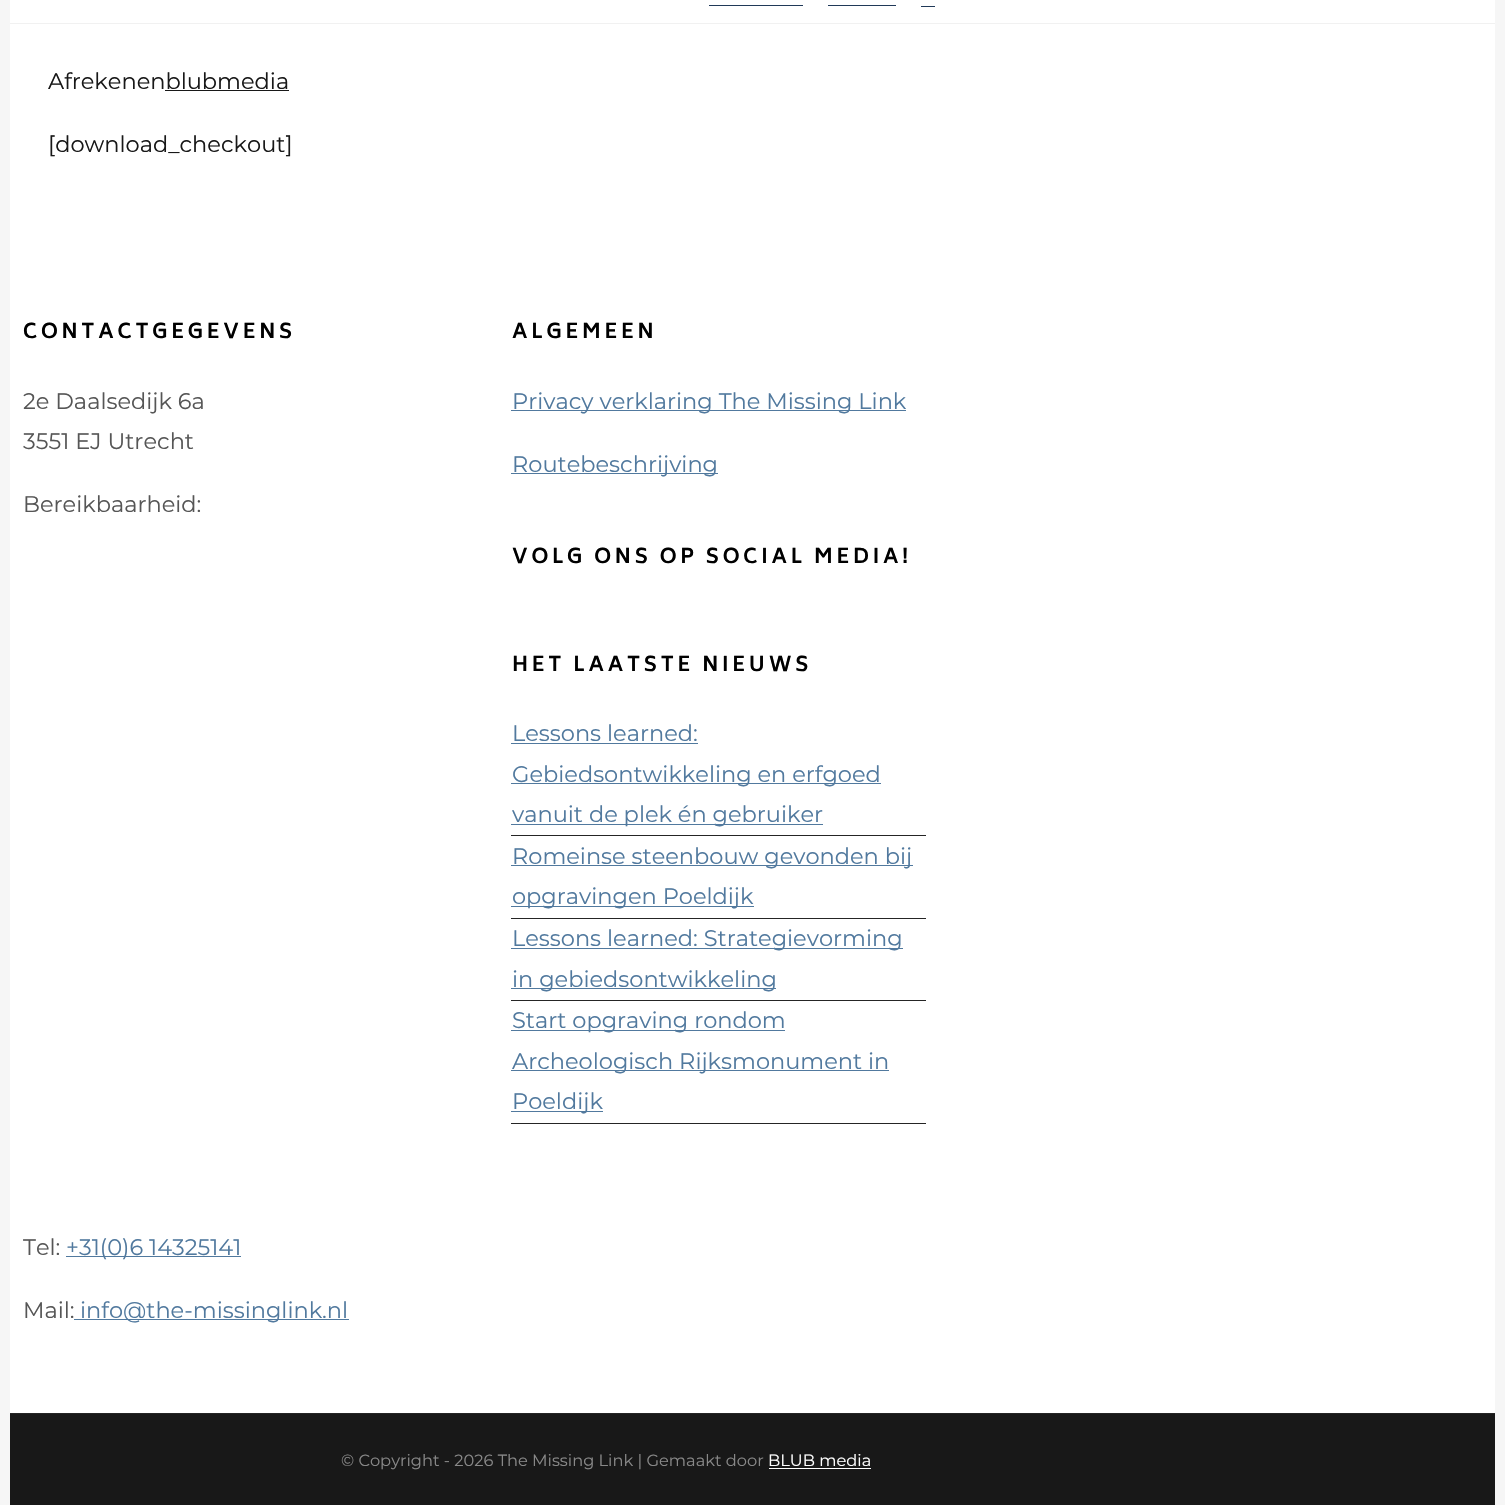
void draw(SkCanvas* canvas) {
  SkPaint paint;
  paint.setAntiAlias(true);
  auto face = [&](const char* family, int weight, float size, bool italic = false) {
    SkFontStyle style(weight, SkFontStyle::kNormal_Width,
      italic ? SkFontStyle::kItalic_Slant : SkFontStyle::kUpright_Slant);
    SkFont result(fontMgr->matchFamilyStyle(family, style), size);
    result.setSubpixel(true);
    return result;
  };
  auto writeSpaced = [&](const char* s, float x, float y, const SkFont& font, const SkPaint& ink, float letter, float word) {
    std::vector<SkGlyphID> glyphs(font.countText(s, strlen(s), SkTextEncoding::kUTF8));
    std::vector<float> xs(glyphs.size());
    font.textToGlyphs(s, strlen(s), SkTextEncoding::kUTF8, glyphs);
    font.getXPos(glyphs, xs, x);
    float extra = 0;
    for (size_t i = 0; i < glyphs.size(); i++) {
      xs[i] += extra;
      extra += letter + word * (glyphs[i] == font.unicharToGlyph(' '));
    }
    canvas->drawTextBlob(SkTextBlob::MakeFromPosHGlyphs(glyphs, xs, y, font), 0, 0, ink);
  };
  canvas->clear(0xfff6f6f6);
  {
    const struct { float x, y, w, h; SkColor color; } items[] = {
      {10, 0, 1485, 1413, 0xffffffff},
      {10, 23, 1485, 1, 0xfff1f1f1},
      {709, 5, 94, 1, 0xff203958},
      {828, 5, 68, 1, 0xff203958},
      {921, 6, 14, 1, 0xff203958},
      {165, 90, 124, 1, 0xff181818},
      {66, 1256, 175, 1, 0xff51799e},
      {74, 1319, 275, 1, 0xff51799e},
      {511, 410, 395, 1, 0xff51799e},
      {511, 473, 207, 1, 0xff51799e},
      {511, 835, 415, 1, 0xff252525},
      {511, 743, 187, 1, 0xff51799e},
      {511, 783, 370, 1, 0xff51799e},
      {511, 824, 312, 1, 0xff51799e},
      {511, 918, 415, 1, 0xff252525},
      {511, 865, 402, 1, 0xff51799e},
      {511, 906, 243, 1, 0xff51799e},
      {511, 1000, 415, 1, 0xff252525},
      {511, 948, 392, 1, 0xff51799e},
      {511, 988, 265, 1, 0xff51799e},
      {511, 1123, 415, 1, 0xff252525},
      {511, 1030, 274, 1, 0xff51799e},
      {511, 1070, 378, 1, 0xff51799e},
      {511, 1111, 92, 1, 0xff51799e},
      {10, 1414, 1485, 91, 0xff181818},
      {10, 1413, 1485, 1, 0xff252525},
      {769, 1468, 102, 1, 0xffffffff},
    };
    for (auto [x, y, w, h, color] : items) {
      paint.setColor(color);
      canvas->drawRect(SkRect::MakeXYWH(x, y, w, h), paint);
    }
  }
  auto f0 = face("Montserrat", 400, 22.5f);
  paint.setColor(0xff181818);
  canvas->drawString("Afrekenenblubmedia", 48, 89, f0, paint);
  canvas->drawString("[download_checkout]", 48, 152, f0, paint);
  auto f1 = face("Biryani", 700, 20);
  paint.setColor(0xff000000);
  writeSpaced("CONTACTGEGEVENS", 23, 338, f1, paint, 3.75f, 0);
  paint.setColor(0xff565656);
  {
    const struct { const char* s; float x, y; } items[] = {
      {"2e Daalsedijk 6a", 23, 409},
      {"3551 EJ Utrecht", 23, 449},
      {"Bereikbaarheid:", 23, 512},
      {"Tel:", 23, 1255},
    };
    for (auto [s, x, y] : items) {
      canvas->drawString(s, x, y, f0, paint);
    }
  }
  paint.setColor(0xff51799e);
  canvas->drawString("+31(0)6 14325141", 66, 1255, f0, paint);
  paint.setColor(0xff565656);
  canvas->drawString("Mail:", 23, 1318, f0, paint);
  paint.setColor(0xff51799e);
  canvas->drawString("info@the-missinglink.nl", 80, 1318, f0, paint);
  paint.setColor(0xff000000);
  writeSpaced("ALGEMEEN", 512, 338, f1, paint, 3.75f, 0);
  paint.setColor(0xff51799e);
  canvas->drawString("Privacy verklaring The Missing Link", 512, 409, f0, paint);
  canvas->drawString("Routebeschrijving", 512, 472, f0, paint);
  paint.setColor(0xff000000);
  writeSpaced("VOLG ONS OP SOCIAL MEDIA!", 512, 563, f1, paint, 3.75f, 0);
  writeSpaced("HET LAATSTE NIEUWS", 512, 671, f1, paint, 3.75f, 0);
  paint.setColor(0xff51799e);
  {
    const struct { const char* s; float x, y; } items[] = {
      {"Lessons learned:", 512, 741},
      {"Gebiedsontwikkeling en erfgoed", 512, 782},
      {"vanuit de plek én gebruiker", 512, 822},
      {"Romeinse steenbouw gevonden bij", 512, 864},
      {"opgravingen Poeldijk", 512, 904},
      {"Lessons learned: Strategievorming", 512, 946},
      {"in gebiedsontwikkeling", 512, 987},
      {"Start opgraving rondom", 512, 1028},
      {"Archeologisch Rijksmonument in", 512, 1069},
      {"Poeldijk", 512, 1109},
    };
    for (auto [s, x, y] : items) {
      canvas->drawString(s, x, y, f0, paint);
    }
  }
  auto f2 = face("Montserrat", 400, 16.25f);
  paint.setColor(0xff888888);
  canvas->drawString("© Copyright - 2026 The Missing Link | Gemaakt door", 341, 1466, f2, paint);
  paint.setColor(0xffffffff);
  canvas->drawString("BLUB media", 768, 1466, f2, paint);
}
